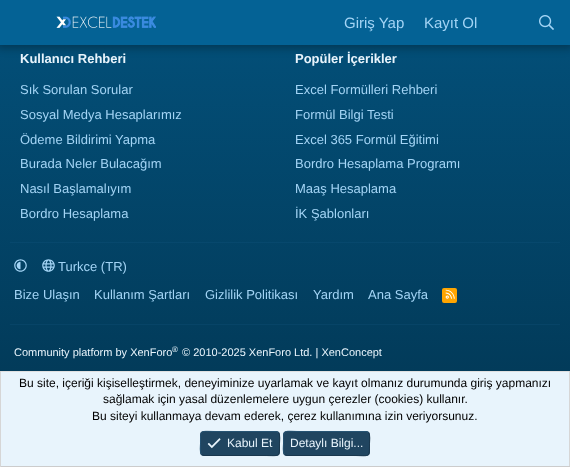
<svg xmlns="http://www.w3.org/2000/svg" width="570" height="467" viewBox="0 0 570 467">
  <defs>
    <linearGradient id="g1" gradientUnits="userSpaceOnUse" x1="285" y1="371" x2="285" y2="-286"><stop offset="0" stop-color="#023b5a"/><stop offset="1" stop-color="#046295"/></linearGradient>
  </defs>
  <rect width="100%" height="100%" fill="#fff"/>
  <path d="M0 45h570v326H0z" fill="url(#g1)"/>
  <path d="M-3 -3h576v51H-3z" fill="#0000004d" filter="blur(4px)"/>
  <path d="M0 0h570v45H0z" fill="#046295"/>
  <image x="56" y="16" width="100" height="12" href="img/1.png"/>
  <image x="539" y="15" width="15" height="15" href="img/2.png"/>
  <path d="M10 242h550v1H10z" fill="#07486d"/>
  <image x="14" y="259" width="13" height="13" href="img/3.png"/>
  <image x="42" y="259" width="13" height="13" href="img/4.png"/>
  <rect x="442" y="288" width="15" height="15" rx="2" fill="#ffa500"/>
  <image x="445" y="289" width="10" height="10" href="img/5.png"/>
  <path d="M10 324h550v1H10z" fill="#074467"/>
  <path d="M1 372h568v94H1z" fill="#e8f4fc"/>
  <path d="M0 371h570v1H0z" fill="#e0e0e0"/>
  <path d="M569 371h1v96H569z" fill="#d6d6d6"/>
  <path d="M0 466h570v1H0z" fill="#ccc"/>
  <path d="M0 371h1v96H0z" fill="#d6d6d6"/>
  <rect x="200" y="431" width="80" height="25" rx="4" fill="#204560"/>
  <path d="M278.5 432.5C280.5 435 279.5 441 279.5 443.5C279.5 458 280 455.5 264 455.5H204L201.5 454.5" fill="none" stroke="#1a374d"/>
  <path d="M201.5 454.5C199.5 452 200.5 446 200.5 443.5C200.5 429 200 431.5 216 431.5H276L278.5 432.5" fill="none" stroke="#265373"/>
  <image x="207" y="438" width="14" height="11" href="img/6.png"/>
  <rect x="283" y="431" width="87" height="25" rx="4" fill="#204560"/>
  <path d="M368.5 432.5C370.5 435 369.5 441 369.5 443.5C369.5 458.5 370 455.5 353 455.5H287L284.5 454.5" fill="none" stroke="#1a374d"/>
  <path d="M284.5 454.5C282.5 452 283.5 446 283.5 443.5C283.5 428.5 283 431.5 300 431.5H366L368.5 432.5" fill="none" stroke="#265373"/>
  <g font-family="Liberation Sans" font-size="15" fill="#a3d4f5">
    <text x="344" y="28">Giriş Yap</text>
    <text x="424" y="28">Kayıt Ol</text>
  </g>
  <text x="20" y="63" font-family="Liberation Sans" font-size="13" font-weight="bold" fill="#e8f4fc">Kullanıcı Rehberi</text>
  <g font-family="Liberation Sans" font-size="13" fill="#a3d4f5">
    <text x="20" y="94">Sık Sorulan Sorular</text>
    <text x="20" y="119">Sosyal Medya Hesaplarımız</text>
    <text x="20" y="144">Ödeme Bildirimi Yapma</text>
    <text x="20" y="168">Burada Neler Bulacağım</text>
    <text x="20" y="193">Nasıl Başlamalıyım</text>
    <text x="20" y="218">Bordro Hesaplama</text>
  </g>
  <text x="295" y="63" font-family="Liberation Sans" font-size="13" font-weight="bold" fill="#e8f4fc">Popüler İçerikler</text>
  <g font-family="Liberation Sans" font-size="13" fill="#a3d4f5">
    <text x="295" y="94">Excel Formülleri Rehberi</text>
    <text x="295" y="119">Formül Bilgi Testi</text>
    <text x="295" y="144">Excel 365 Formül Eğitimi</text>
    <text x="295" y="168">Bordro Hesaplama Programı</text>
    <text x="295" y="193">Maaş Hesaplama</text>
    <text x="295" y="218">İK Şablonları</text>
    <text x="58" y="271">Turkce (TR)</text>
    <text x="14" y="299">Bize Ulaşın</text>
    <text x="94" y="299">Kullanım Şartları</text>
    <text x="205" y="299">Gizlilik Politikası</text>
    <text x="313" y="299">Yardım</text>
    <text x="368" y="299">Ana Sayfa</text>
  </g>
  <text x="14" y="356" font-family="Liberation Sans" font-size="11" fill="#e8f4fc">Community platform by XenForo</text>
  <text x="172" y="352" font-family="Liberation Sans" font-size="8" fill="#e8f4fc">®</text>
  <text x="182" y="356" font-family="Liberation Sans" font-size="11" fill="#e8f4fc">© 2010-2025 XenForo Ltd. | XenConcept</text>
  <g font-family="Liberation Sans" font-size="12" fill="#000">
    <text x="19" y="387">Bu site, içeriği kişiselleştirmek, deneyiminize uyarlamak ve kayıt olmanız durumunda giriş yapmanızı</text>
    <text x="103" y="403">sağlamak için yasal düzenlemelere uygun çerezler (cookies) kullanır.</text>
    <text x="92" y="420">Bu siteyi kullanmaya devam ederek, çerez kullanımına izin veriyorsunuz.</text>
  </g>
  <g font-family="Liberation Sans" font-size="12" fill="#e8f4fc">
    <text x="227" y="447">Kabul Et</text>
    <text x="290" y="447">Detaylı Bilgi...</text>
  </g>
</svg>
